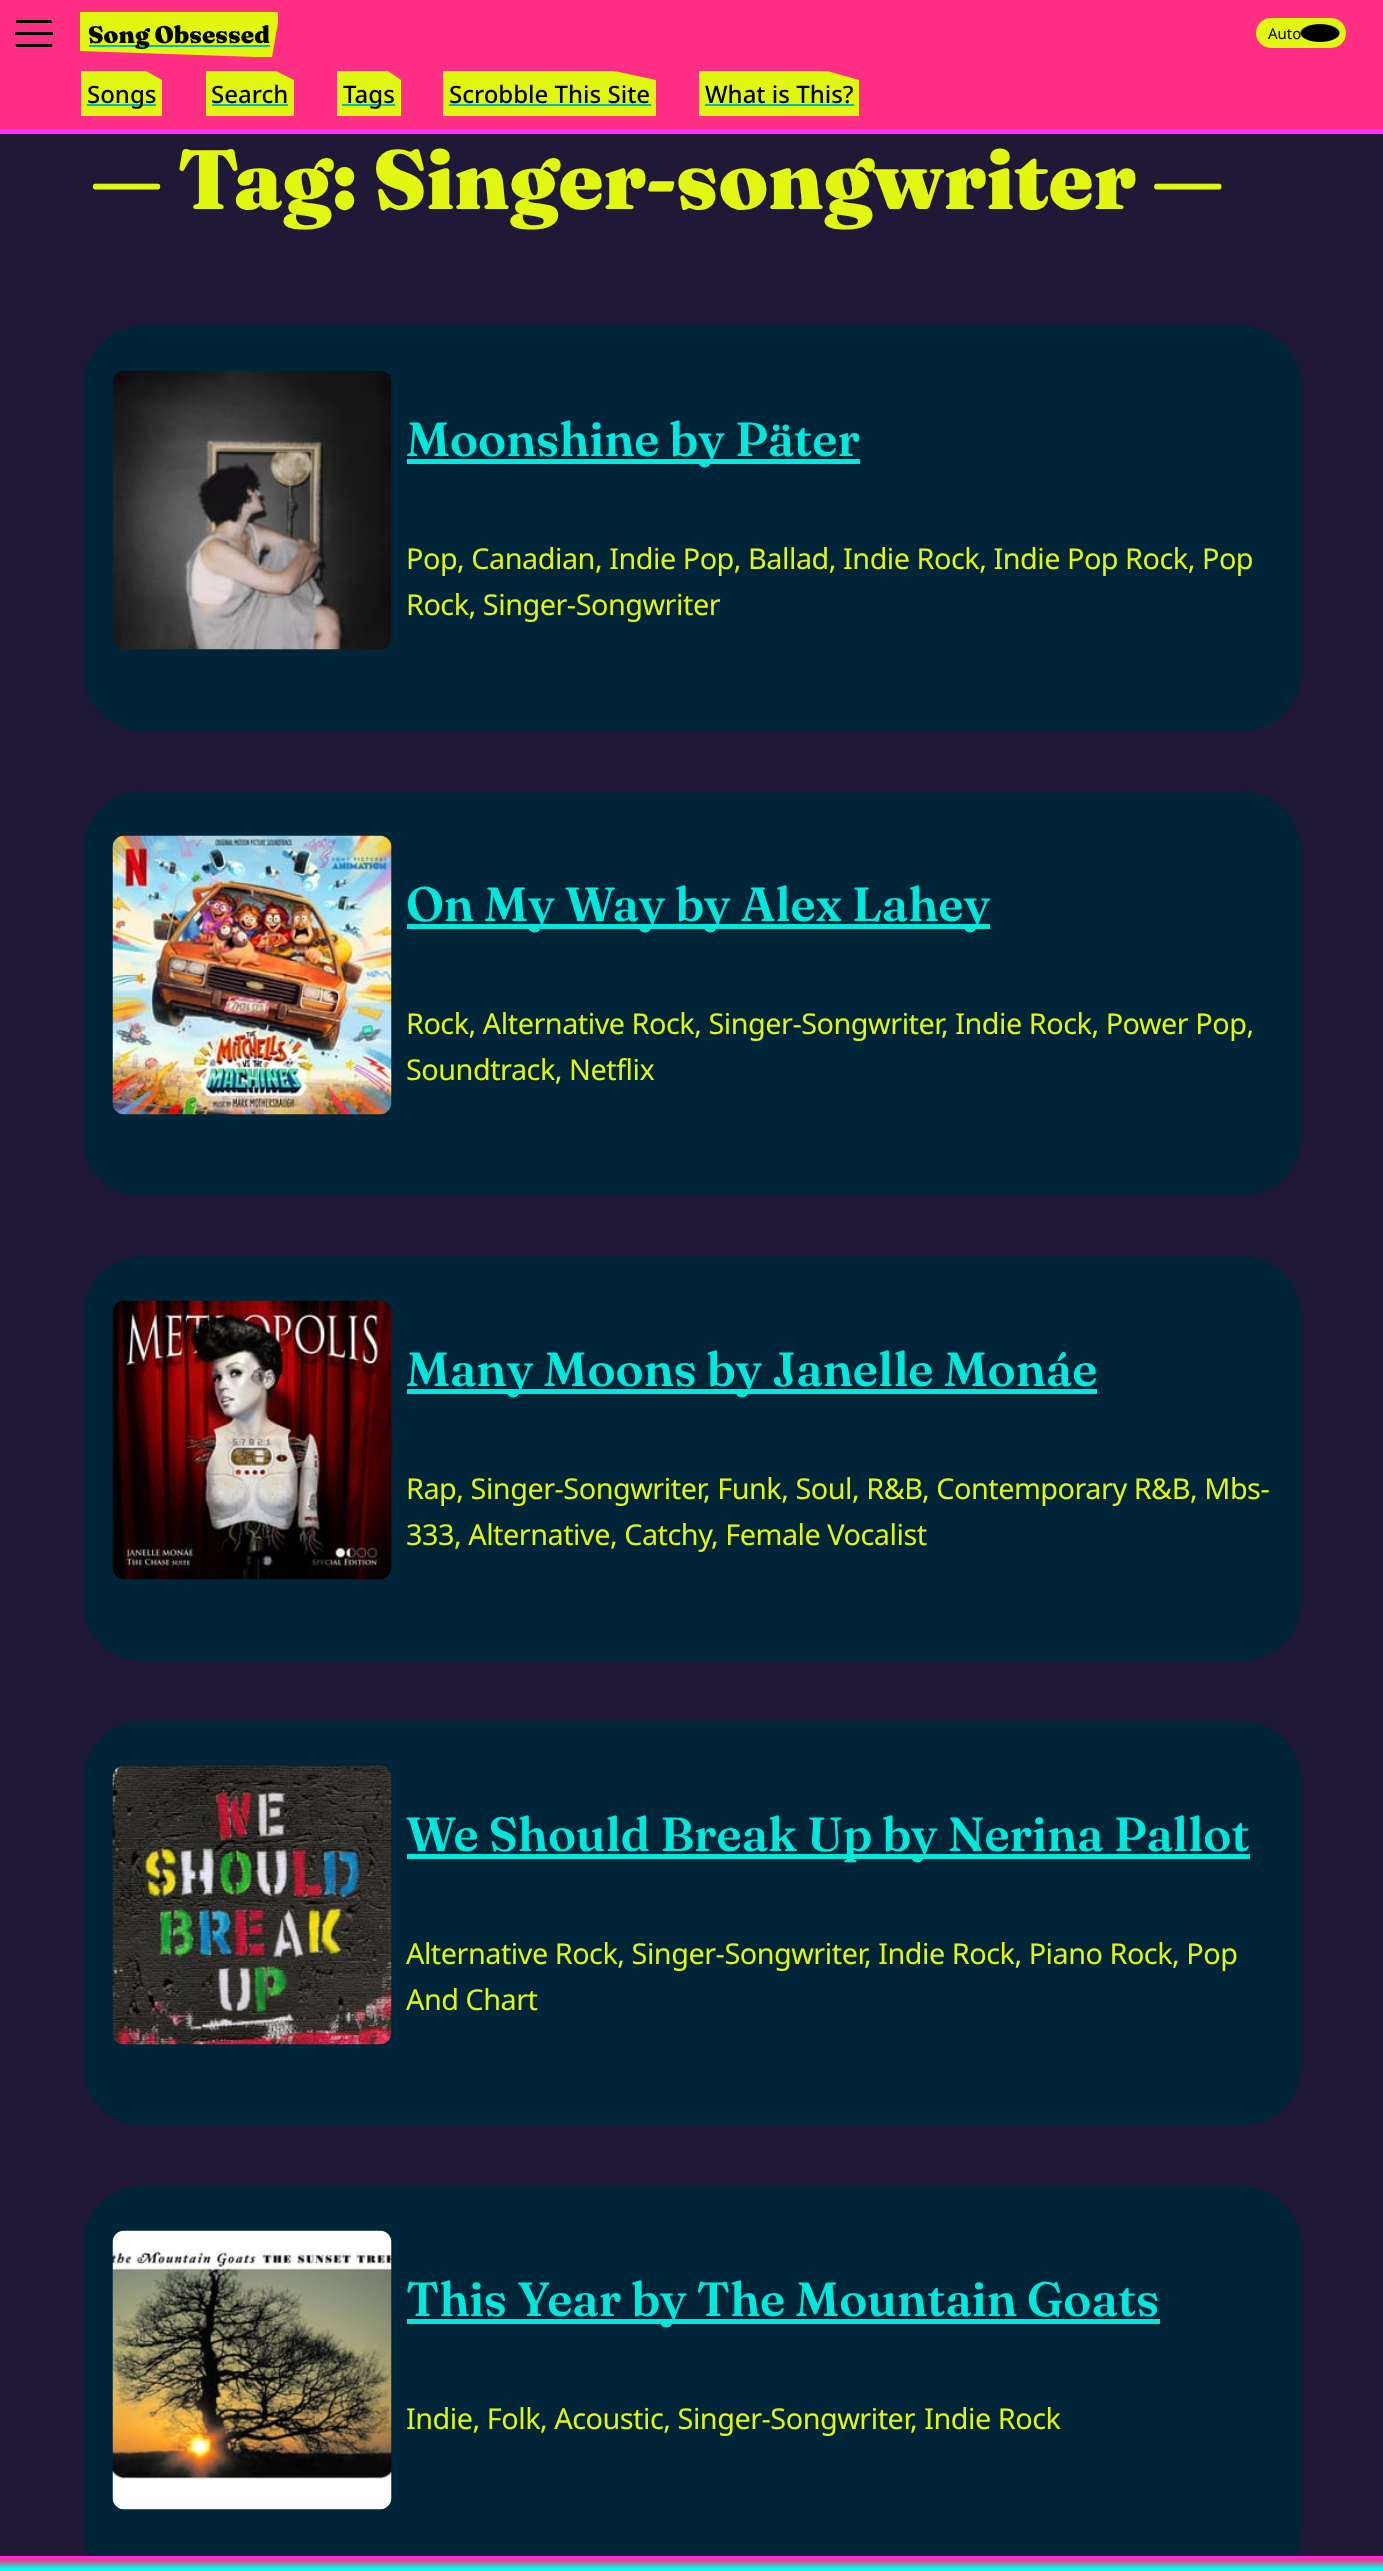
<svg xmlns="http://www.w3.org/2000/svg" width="1383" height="2571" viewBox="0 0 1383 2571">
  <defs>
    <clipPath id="clip1"><rect x="15" y="15" width="38" height="38" rx="12"/></clipPath>
    <linearGradient id="g1" gradientUnits="userSpaceOnUse" x1="692" y1="2556" x2="692" y2="2571"><stop offset="0" stop-color="#ff2eff"/><stop offset="0.25" stop-color="#ff2f86"/><stop offset="0.85" stop-color="#00fff2"/></linearGradient>
  </defs>
  <rect width="100%" height="100%" fill="#1f1836"/>
  <path d="M0 0h1383v129H0z" fill="#ff2f86"/>
  <path d="M0 129h1383v5H0z" fill="#ff2eff"/>
  <g clip-path="url(#clip1)">
    <path d="M15 20h38v3H15z" fill="#000"/>
  </g>
  <path d="M15 32h38v3H15z" fill="#000"/>
  <g clip-path="url(#clip1)">
    <path d="M15 44h38v3H15z" fill="#000"/>
  </g>
  <path d="M80 12H278V23L272 57H256L80 51Z" fill="#e2f70f"/>
  <path d="M89 45h181v2H89z" fill="#01bcb9"/>
  <rect x="1256" y="18" width="90" height="30" rx="15" fill="#e2f70f"/>
  <ellipse cx="1320" cy="33" rx="19.5" ry="9" fill="#010101"/>
  <path d="M81 71V116H162V80L146 71Z" fill="#e2f70f"/>
  <path d="M87 104h69v2H87z" fill="#01bcb9"/>
  <path d="M294 80V116H206V71H276Z" fill="#e2f70f"/>
  <path d="M212 104h76v2H212z" fill="#01bcb9"/>
  <path d="M337 71H388L401 80V116H337Z" fill="#e2f70f"/>
  <path d="M342 104h53v2H342z" fill="#01bcb9"/>
  <path d="M443 71H614L656 80V116H443Z" fill="#e2f70f"/>
  <path d="M449 104h202v2H449z" fill="#01bcb9"/>
  <path d="M859 116H699V71H827L859 80Z" fill="#e2f70f"/>
  <path d="M705 104h149v2H705z" fill="#01bcb9"/>
  <rect x="83" y="326" width="1218" height="405" rx="60" fill="#002438"/>
  <image x="112" y="370" width="280" height="280" href="img/1.png"/>
  <path d="M407 459h453v5H407z" fill="#00e8dc"/>
  <rect x="83" y="791" width="1218" height="405" rx="60" fill="#002438"/>
  <image x="112" y="835" width="280" height="280" href="img/2.png"/>
  <path d="M407 924h583v5H407z" fill="#00e8dc"/>
  <rect x="83" y="1256" width="1218" height="405" rx="60" fill="#002438"/>
  <image x="112" y="1300" width="280" height="280" href="img/3.png"/>
  <path d="M407 1389h690v5H407z" fill="#00e8dc"/>
  <rect x="83" y="1721" width="1218" height="405" rx="60" fill="#002438"/>
  <image x="112" y="1765" width="280" height="280" href="img/4.png"/>
  <path d="M407 1854h843v5H407z" fill="#00e8dc"/>
  <rect x="83" y="2186" width="1218" height="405" rx="60" fill="#002438"/>
  <image x="112" y="2230" width="280" height="280" href="img/5.png"/>
  <path d="M407 2319h753v5H407z" fill="#00e8dc"/>
  <path d="M0 2556h1383v15H0z" fill="url(#g1)"/>
  <text x="88" y="43" font-family="'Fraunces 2'" font-size="24" font-weight="900" fill="#010101">Song Obsessed</text>
  <text x="1268" y="39" font-family="Noto Sans" font-size="15" fill="#010101">Auto</text>
  <g font-family="Noto Sans" font-size="24" font-weight="500" fill="#010101">
    <text x="87" y="103">Songs</text>
    <text x="211" y="103">Search</text>
    <text x="343" y="103">Tags</text>
    <text x="449" y="103">Scrobble This Site</text>
    <text x="705" y="103">What is This?</text>
  </g>
  <text x="91" y="209" font-family="Fraunces" font-size="84" font-weight="900" fill="#e2f70f">— Tag: Singer-songwriter —</text>
  <text x="406" y="456" font-family="Fraunces" font-size="48" font-weight="600" fill="#00e8dc">Moonshine by Päter</text>
  <g font-family="Noto Sans" font-size="28.8" letter-spacing="-0.48" fill="#e2f70f">
    <text x="406" y="569">Pop, Canadian, Indie Pop, Ballad, Indie Rock, Indie Pop Rock, Pop</text>
    <text x="406" y="615">Rock, Singer-Songwriter</text>
  </g>
  <text x="406" y="921" font-family="Fraunces" font-size="48" font-weight="600" fill="#00e8dc">On My Way by Alex Lahey</text>
  <g font-family="Noto Sans" font-size="28.8" letter-spacing="-0.48" fill="#e2f70f">
    <text x="406" y="1034">Rock, Alternative Rock, Singer-Songwriter</text>
    <text x="941" y="1034">, Indie Rock, Power Pop,</text>
    <text x="406" y="1080">Soundtrack, Netflix</text>
  </g>
  <text x="406" y="1386" font-family="Fraunces" font-size="48" font-weight="600" fill="#00e8dc">Many Moons by Janelle Monáe</text>
  <g font-family="Noto Sans" font-size="28.8" letter-spacing="-0.48" fill="#e2f70f">
    <text x="406" y="1499">Rap, Singer-Songwriter</text>
    <text x="703" y="1499">, Funk, Soul, R&amp;B</text>
    <text x="922" y="1499">, Contemporary R&amp;B</text>
    <text x="1190" y="1499">, Mbs-</text>
    <text x="406" y="1545">333, Alternative, Catchy</text>
    <text x="711" y="1545">, Female Vocalist</text>
  </g>
  <text x="406" y="1851" font-family="Fraunces" font-size="48" font-weight="600" fill="#00e8dc">We Should Break Up by Nerina Pallot</text>
  <g font-family="Noto Sans" font-size="28.8" letter-spacing="-0.48" fill="#e2f70f">
    <text x="406" y="1964">Alternative Rock, Singer-Songwriter</text>
    <text x="864" y="1964">, Indie Rock, Piano Rock, Pop</text>
    <text x="406" y="2010">And Chart</text>
  </g>
  <text x="406" y="2316" font-family="Fraunces" font-size="48" font-weight="600" fill="#00e8dc">This Year by The Mountain Goats</text>
  <g font-family="Noto Sans" font-size="28.8" letter-spacing="-0.48" fill="#e2f70f">
    <text x="406" y="2429">Indie, Folk, Acoustic, Singer-Songwriter</text>
    <text x="910" y="2429">, Indie Rock</text>
  </g>
</svg>
